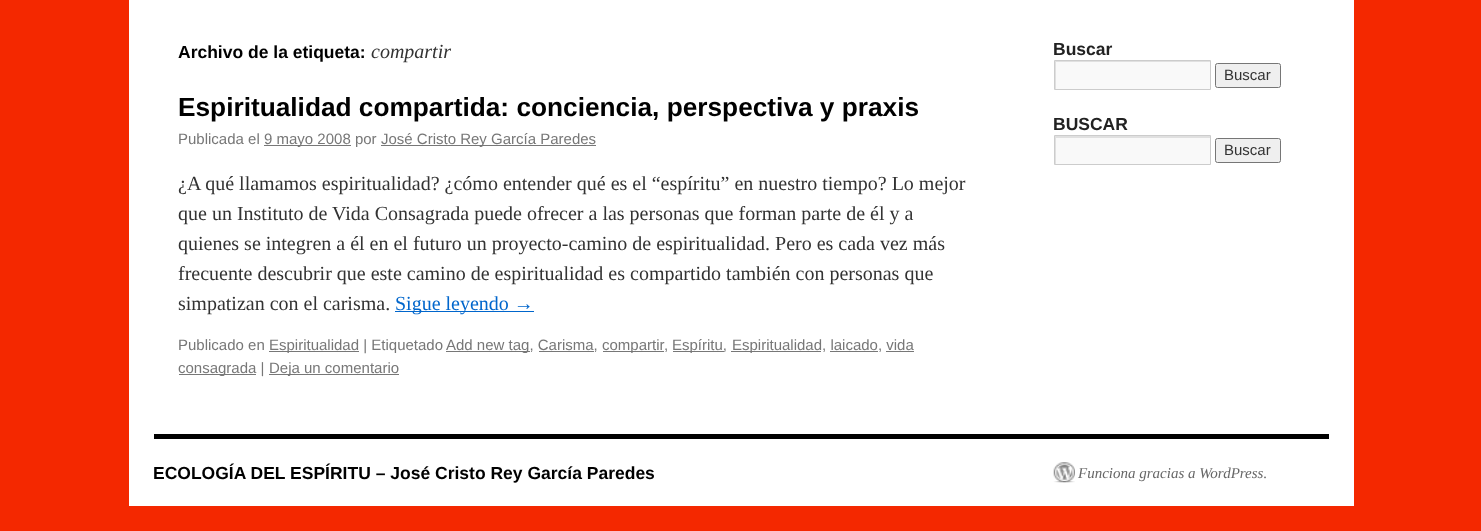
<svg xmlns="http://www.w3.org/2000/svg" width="1481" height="531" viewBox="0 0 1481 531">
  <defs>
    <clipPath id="clip1"><path d="M1055 61h155v28H1055z"/></clipPath>
    <clipPath id="clip2"><path d="M1055 136h155v28H1055z"/></clipPath>
  </defs>
  <rect width="100%" height="100%" fill="#f42800"/>
  <path d="M129 0h1225v506H129z" fill="#fff"/>
  <path d="M264 145h87v1H264z" fill="#777"/>
  <path d="M381 145h215v1H381z" fill="#777"/>
  <path d="M395 311h139v1H395z" fill="#06c"/>
  <path d="M269 351h90v1H269z" fill="#777"/>
  <path d="M446 351h84v1H446z" fill="#777"/>
  <path d="M539 351h55v1H539z" fill="#777"/>
  <path d="M603 351h61v1H603z" fill="#777"/>
  <path d="M673 351h51v1H673z" fill="#777"/>
  <path d="M731 351h90v1H731z" fill="#777"/>
  <path d="M830 351h48v1H830z" fill="#777"/>
  <path d="M886 351h28v1H886z" fill="#777"/>
  <path d="M179 374h77v1H179z" fill="#777"/>
  <path d="M269 374h130v1H269z" fill="#777"/>
  <path d="M1056 62h154v27H1056z" fill="#f9f9f9"/>
  <g clip-path="url(#clip1)">
    <path d="M931-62H1334V212H931ZM1056 62H1211V90H1056Z" fill="#e0e0e0" fill-rule="evenodd"/>
  </g>
  <path d="M1054.5 60.5h156v29H1054.5z" fill="none" stroke="#ccc"/>
  <rect x="1215.5" y="63.5" width="65" height="24" rx="2" fill="#efefef" stroke="#767676"/>
  <path d="M1056 138h154v26H1056z" fill="#f9f9f9"/>
  <g clip-path="url(#clip2)">
    <path d="M931 12H1334V288H931ZM1056 138H1211V165H1056Z" fill="#e0e0e0" fill-rule="evenodd"/>
  </g>
  <path d="M1054.5 135.5h156v29H1054.5z" fill="none" stroke="#ccc"/>
  <rect x="1215.5" y="138.5" width="65" height="24" rx="2" fill="#efefef" stroke="#767676"/>
  <path d="M154 434h1175v5H154z" fill="#000"/>
  <image x="1053" y="462" width="22" height="21" href="img/1.png"/>
  <text x="178" y="58" font-family="Liberation Sans" font-size="17.5" font-weight="bold" fill="#000">Archivo de la etiqueta:</text>
  <text x="371" y="58" font-family="Liberation Serif" font-size="20" font-style="italic" fill="#333">compartir</text>
  <text x="178" y="116" font-family="Liberation Sans" font-size="26.25" font-weight="bold" fill="#000">Espiritualidad compartida: conciencia, perspectiva y praxis</text>
  <g font-family="Liberation Sans" font-size="15" fill="#777">
    <text x="178" y="144">Publicada el</text>
    <text x="264" y="144">9 mayo 2008 por</text>
    <text x="381" y="144">José Cristo Rey García Paredes</text>
  </g>
  <g font-family="Liberation Serif" font-size="20" fill="#333">
    <text x="178" y="190">¿A qué llamamos espiritualidad? ¿cómo entender qué es el “espíritu” en nuestro tiempo? Lo mejor</text>
    <text x="178" y="220">que un Instituto de Vida Consagrada puede ofrecer a las personas que forman parte de él y a</text>
    <text x="178" y="250">quienes se integren a él en el futuro un proyecto-camino de espiritualidad. Pero es cada vez más</text>
    <text x="178" y="280">frecuente descubrir que este camino de espiritualidad es compartido también con personas que</text>
    <text x="178" y="310">simpatizan con el carisma.</text>
  </g>
  <text x="395" y="310" font-family="Liberation Serif" font-size="20" fill="#06c">Sigue leyendo →</text>
  <g font-family="Liberation Sans" font-size="15" fill="#777">
    <text x="178" y="350">Publicado en</text>
    <text x="269" y="350">Espiritualidad | Etiquetado</text>
    <text x="446" y="350">Add new tag, Carisma,</text>
    <text x="602" y="350">compartir</text>
    <text x="664" y="350">,</text>
    <text x="672" y="350">Espíritu,</text>
    <text x="732" y="350">Espiritualidad, laicado, vida</text>
    <text x="178" y="373">consagrada |</text>
    <text x="269" y="373">Deja un comentario</text>
  </g>
  <text x="1053" y="55" font-family="Liberation Sans" font-size="17.5" font-weight="bold" fill="#222">Buscar</text>
  <text x="1224" y="80" font-family="Liberation Sans" font-size="15" fill="#333">Buscar</text>
  <text x="1053" y="130" font-family="Liberation Sans" font-size="17.5" font-weight="bold" fill="#222">BUSCAR</text>
  <text x="1224" y="155" font-family="Liberation Sans" font-size="15" fill="#333">Buscar</text>
  <text x="153" y="479" font-family="Liberation Sans" font-size="17.5" font-weight="bold" fill="#000">ECOLOGÍA DEL ESPÍRITU – José Cristo Rey García Paredes</text>
  <text x="1078" y="478" font-family="Liberation Serif" font-size="15" font-style="italic" fill="#666">Funciona gracias a WordPress.</text>
</svg>
